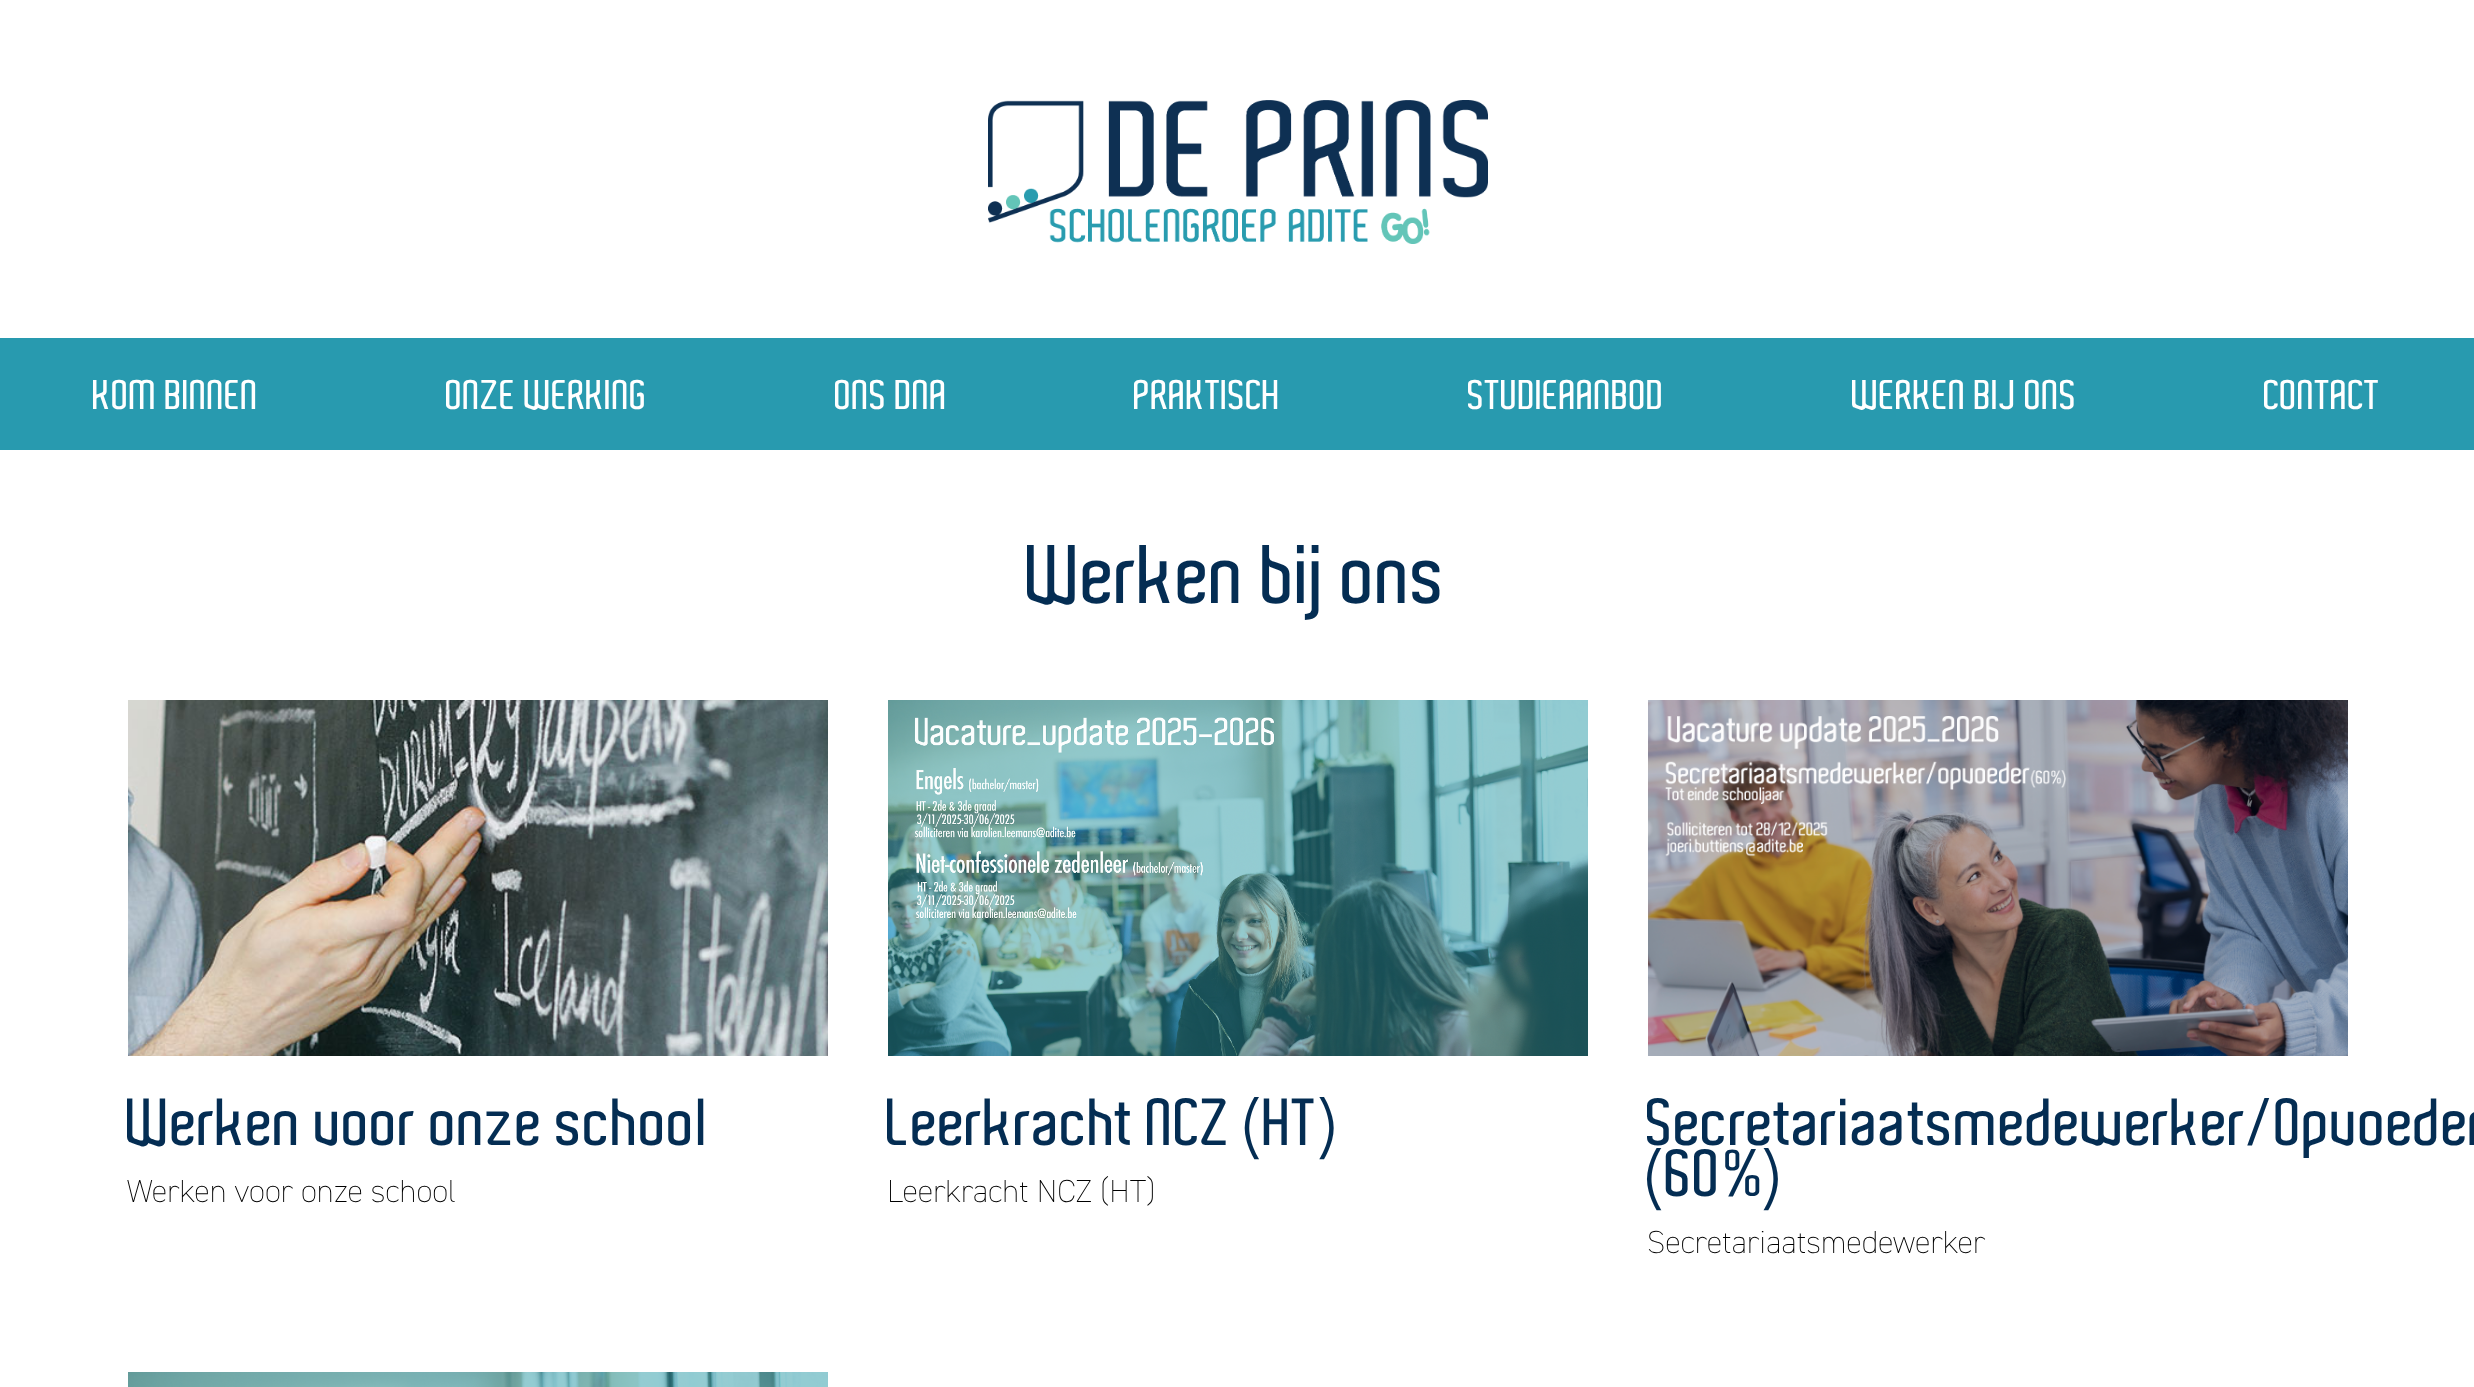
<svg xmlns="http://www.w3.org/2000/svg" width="2474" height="1387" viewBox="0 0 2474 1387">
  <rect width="100%" height="100%" fill="#fff"/>
  <image x="988" y="100" width="500" height="144" href="img/1.png"/>
  <path d="M0 338h2474v112H0z" fill="#289aaf"/>
  <image x="128" y="700" width="700" height="356" href="img/2.png"/>
  <image x="888" y="700" width="700" height="356" href="img/3.png"/>
  <image x="1648" y="700" width="700" height="356" href="img/4.png"/>
  <image x="128" y="1372" width="700" height="15" href="img/5.png"/>
  <g font-family="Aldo" font-size="40" font-weight="600" fill="#fff">
    <text x="93" y="409">KOM BINNEN</text>
    <text x="446" y="409">ONZE WERKING</text>
    <text x="835" y="409">ONS DNA</text>
    <text x="1134" y="409">PRAKTISCH</text>
    <text x="1468" y="409">STUDIEAANBOD</text>
    <text x="1852" y="409">WERKEN BIJ ONS</text>
    <text x="2264" y="409">CONTACT</text>
  </g>
  <text x="1027" y="603" font-family="Aldo" font-size="80" font-weight="600" fill="#042d53">Werken bij ons</text>
  <text x="127" y="1145" font-family="Aldo" font-size="64" font-weight="600" fill="#042d53">Werken voor onze school</text>
  <text x="127" y="1202" font-family="'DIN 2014'" font-size="32" font-weight="200" fill="#000">Werken voor onze school</text>
  <text x="887" y="1145" font-family="Aldo" font-size="64" font-weight="600" fill="#042d53">Leerkracht NCZ (HT)</text>
  <text x="887" y="1202" font-family="'DIN 2014'" font-size="32" font-weight="200" fill="#000">Leerkracht NCZ (HT)</text>
  <g font-family="Aldo" font-size="64" font-weight="600" fill="#042d53">
    <text x="1647" y="1145">Secretariaatsmedewerker/Opvoeder</text>
    <text x="1647" y="1196">(60%)</text>
  </g>
  <text x="1647" y="1253" font-family="'DIN 2014'" font-size="32" font-weight="200" fill="#000">Secretariaatsmedewerker</text>
</svg>
